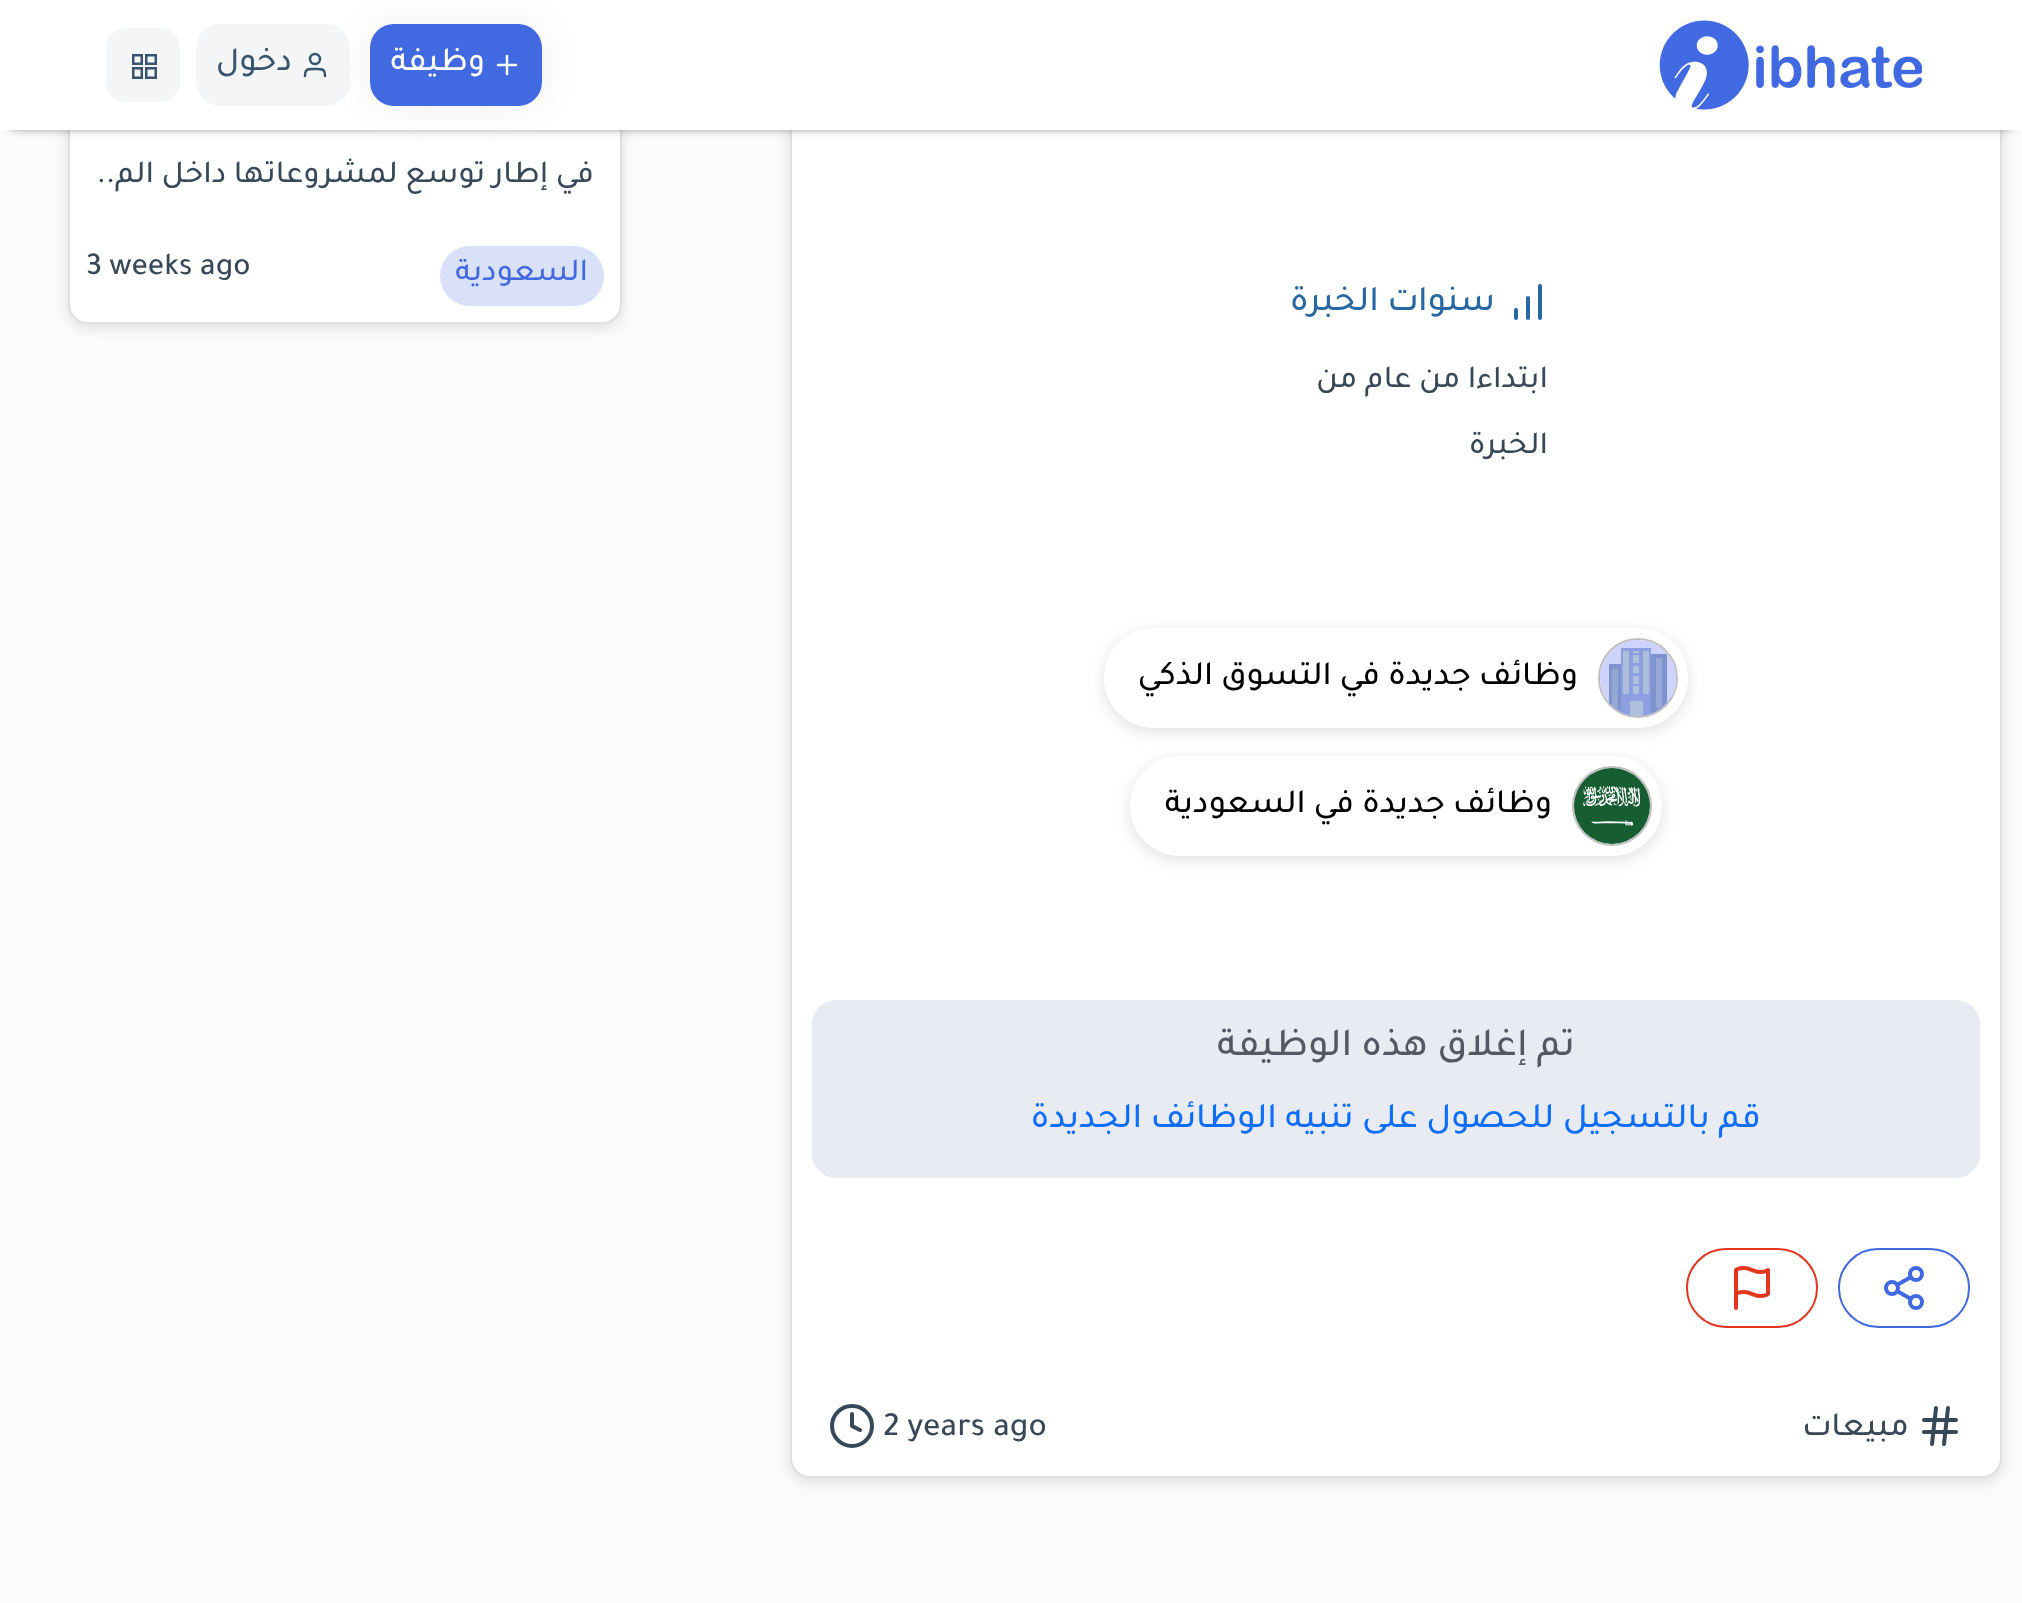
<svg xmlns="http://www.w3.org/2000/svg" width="2022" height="1603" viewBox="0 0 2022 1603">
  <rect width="100%" height="100%" fill="#fcfcfd"/>
  <rect x="68" y="-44" width="554" height="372" rx="20" fill="#63636333" filter="blur(8px)"/>
  <rect x="68" y="-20" width="554" height="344" rx="20" fill="#fff"/>
  <rect x="69" y="-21" width="552" height="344" rx="19" fill="none" stroke="#63636333" stroke-width="2"/>
  <rect x="790" y="-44" width="1212" height="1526" rx="20" fill="#63636333" filter="blur(8px)"/>
  <rect x="790" y="-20" width="1212" height="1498" rx="20" fill="#fff"/>
  <rect x="791" y="-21" width="1210" height="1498" rx="19" fill="none" stroke="#63636333" stroke-width="2"/>
  <path d="M12 20h1998v106H12z" fill="#2e2d2d" filter="blur(6px)"/>
  <path d="M0 0h2022v130H0z" fill="#fff"/>
  <image x="1659" y="20" width="263" height="90" href="img/1.png"/>
  <rect x="370" y="24" width="172" height="82" rx="24" fill="#eee" filter="blur(20px)"/>
  <rect x="370" y="24" width="172" height="82" rx="24" fill="#4169e1"/>
  <path d="M507 56V74M498 65H516" fill="none" stroke="#fff" stroke-width="2.5" stroke-linecap="round" stroke-linejoin="round"/>
  <rect x="196" y="24" width="154" height="82" rx="24" fill="#f3f5f6"/>
  <path d="M325 76C325 68.5 322 69 315 69C308 69 305 68.5 305 76" fill="none" stroke="#39546e" stroke-width="2.5" stroke-linecap="round" stroke-linejoin="round"/>
  <circle cx="315" cy="59" r="5" fill="none" stroke="#39546e" stroke-width="2.5"/>
  <rect x="106" y="28" width="74" height="74" rx="20" fill="#f4f5f6"/>
  <path d="M133.25 55.25h8.5v8.5H133.25z" fill="none" stroke="#39546e" stroke-width="2.5"/>
  <path d="M146.25 55.25h9.5v8.5H146.25z" fill="none" stroke="#39546e" stroke-width="2.5"/>
  <path d="M146.25 68.25h9.5v9.5H146.25z" fill="none" stroke="#39546e" stroke-width="2.5"/>
  <path d="M133.25 68.25h8.5v9.5H133.25z" fill="none" stroke="#39546e" stroke-width="2.5"/>
  <rect x="440" y="246" width="164" height="60" rx="30" fill="#d9e1f9"/>
  <path d="M1528 318V298M1540 318V286M1516 318V310" fill="none" stroke="#2767a3" stroke-width="4" stroke-linecap="round" stroke-linejoin="round"/>
  <rect x="1104" y="632" width="584" height="100" rx="50" fill="#63636333" filter="blur(8px)"/>
  <rect x="1104" y="628" width="584" height="100" rx="50" fill="#fff"/>
  <circle cx="1638" cy="678" r="39" fill="none" stroke="#c0c0c0" stroke-width="2"/>
  <image x="1600" y="640" width="76" height="76" href="img/2.png"/>
  <rect x="1130" y="760" width="532" height="100" rx="50" fill="#63636333" filter="blur(8px)"/>
  <rect x="1130" y="756" width="532" height="100" rx="50" fill="#fff"/>
  <circle cx="1612" cy="806" r="39" fill="none" stroke="#c0c0c0" stroke-width="2"/>
  <image x="1574" y="768" width="76" height="76" href="img/3.png"/>
  <rect x="812" y="1000" width="1168" height="178" rx="24" fill="#e9ebf2"/>
  <rect x="1839" y="1249" width="130" height="78" rx="39" fill="none" stroke="#4169e1" stroke-width="2"/>
  <circle cx="1916" cy="1274" r="6" fill="none" stroke="#4169e1" stroke-width="4"/>
  <circle cx="1892" cy="1288" r="6" fill="none" stroke="#4169e1" stroke-width="4"/>
  <circle cx="1916" cy="1302" r="6" fill="none" stroke="#4169e1" stroke-width="4"/>
  <path d="M1897 1291L1911 1299M1911 1277L1897 1285" fill="none" stroke="#4169e1" stroke-width="4" stroke-linecap="round" stroke-linejoin="round"/>
  <rect x="1687" y="1249" width="130" height="78" rx="39" fill="none" stroke="#e4361f" stroke-width="2"/>
  <image x="1734" y="1266" width="36" height="44" href="img/4.png"/>
  <path d="M1924 1420H1956M1924 1432H1956M1936 1408L1932 1444M1948 1408L1944 1444" fill="none" stroke="#374858" stroke-width="4" stroke-linecap="round" stroke-linejoin="round"/>
  <circle cx="852" cy="1426" r="20" fill="none" stroke="#374858" stroke-width="4"/>
  <path d="M852 1414V1426L860 1430" fill="none" stroke="#374858" stroke-width="4" stroke-linecap="round" stroke-linejoin="round"/>
  <text x="485" y="70" font-family="Tajawal" font-size="34" font-weight="500" direction="rtl" fill="#fff">وظيفة</text>
  <text x="292" y="70" font-family="Tajawal" font-size="34" font-weight="500" direction="rtl" fill="#39546e">دخول</text>
  <text x="594" y="182" font-family="Tajawal" font-size="32" font-weight="500" direction="rtl" fill="#374858">في إطار توسع لمشروعاتها داخل الم..</text>
  <text x="588" y="280" font-family="Tajawal" font-size="32" font-weight="500" direction="rtl" fill="#4169e1">السعودية</text>
  <text x="86" y="274" font-family="Tajawal" font-size="32" font-weight="500" fill="#374858">3 weeks ago</text>
  <text x="1495" y="310" font-family="Tajawal" font-size="36" font-weight="500" direction="rtl" fill="#2767a3">سنوات الخبرة</text>
  <g font-family="Tajawal" font-size="32" font-weight="500" direction="rtl" fill="#374858">
    <text x="1548" y="387">ابتداءا من عام من</text>
    <text x="1548" y="453">الخبرة</text>
  </g>
  <g font-family="Tajawal" font-size="34" font-weight="500" direction="rtl" fill="#000">
    <text x="1578" y="684">وظائف جديدة في التسوق الذكي</text>
    <text x="1552" y="812">وظائف جديدة في السعودية</text>
  </g>
  <text x="1575" y="1055" font-family="Tajawal" font-size="40" font-weight="500" direction="rtl" fill="#555863">تم إغلاق هذه الوظيفة</text>
  <text x="1761" y="1127" font-family="Tajawal" font-size="36" font-weight="500" direction="rtl" fill="#0d6efd">قم بالتسجيل للحصول على تنبيه الوظائف الجديدة</text>
  <text x="1909" y="1435" font-family="Tajawal" font-size="34" font-weight="500" direction="rtl" fill="#374858">مبيعات</text>
  <text x="883" y="1435" font-family="Tajawal" font-size="34" font-weight="500" fill="#374858">2 years ago</text>
</svg>
